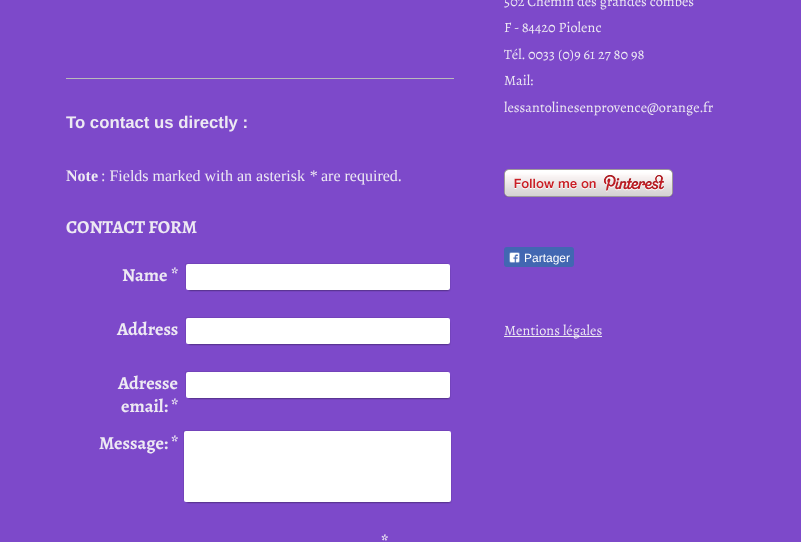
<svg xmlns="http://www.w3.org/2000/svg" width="801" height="542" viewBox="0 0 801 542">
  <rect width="100%" height="100%" fill="#7d49ca"/>
  <path d="M66 78h388v1H66z" fill="#bababa"/>
  <path d="M187 263C186 263 185 264 185 265V287C185 288 185 289 186 289V273C186 272 184 264 188 264H449L447 263Z" fill="#7343ba"/>
  <path d="M189 268h260v22H189z" fill="#000000cc" filter="blur(1px)"/>
  <rect x="186" y="264" width="264" height="26" rx="2" fill="#fff"/>
  <path d="M187 317C186 317 185 318 185 319V341C185 342 185 343 186 343V327C186 326 184 318 188 318H449L447 317Z" fill="#7343ba"/>
  <path d="M189 322h260v22H189z" fill="#000000cc" filter="blur(1px)"/>
  <rect x="186" y="318" width="264" height="26" rx="2" fill="#fff"/>
  <path d="M187 371C186 371 185 372 185 373V395C185 396 185 397 186 397V381C186 380 184 372 188 372H449L447 371Z" fill="#7343ba"/>
  <path d="M189 376h260v22H189z" fill="#000000cc" filter="blur(1px)"/>
  <rect x="186" y="372" width="264" height="26" rx="2" fill="#fff"/>
  <path d="M185 430L183 431V499L184 501V444C184 440 182 431 186 431H450L448 430Z" fill="#7343ba"/>
  <path d="M187 435h263v67H187z" fill="#000000cc" filter="blur(1px)"/>
  <rect x="184" y="431" width="267" height="71" rx="2" fill="#fff"/>
  <image x="504" y="169" width="169" height="28" href="img/1.png"/>
  <rect x="504" y="247" width="70" height="20" rx="3" fill="#4267b2"/>
  <image x="509" y="252" width="11" height="11" href="img/2.png"/>
  <path d="M504 336h98v1H504z" fill="#ede9f3"/>
  <text x="66" y="128" font-family="Liberation Sans" font-size="16.75" font-weight="bold" fill="#ede9f3">To contact us directly :</text>
  <text x="66" y="181" font-family="Liberation Serif" font-size="16" font-weight="bold" fill="#ede9f3">Note</text>
  <text x="101" y="181" font-family="Liberation Serif" font-size="16" fill="#ede9f3">: Fields marked with an asterisk</text>
  <text x="309" y="181" font-family="Liberation Serif" font-size="16" font-style="italic" fill="#ede9f3">*</text>
  <text x="321" y="181" font-family="Liberation Serif" font-size="16" fill="#ede9f3">are required.</text>
  <g font-family="Alegreya" font-size="18.25" font-weight="bold" fill="#ede9f3">
    <text x="66" y="233">CONTACT FORM</text>
    <text x="122" y="281">Name</text>
    <text x="171" y="281">*</text>
    <text x="117" y="335">Address</text>
    <text x="118" y="389">Adresse</text>
    <text x="121" y="412">email:</text>
    <text x="171" y="412">*</text>
    <text x="99" y="449">Message:</text>
    <text x="171" y="449">*</text>
    <text x="381" y="548">*</text>
  </g>
  <g font-family="Alegreya" font-size="14.25" fill="#ede9f3">
    <text x="504" y="6">502 Chemin des grandes combes</text>
    <text x="504" y="32">F - 84420 Piolenc</text>
    <text x="504" y="59">Tél. 0033 (0)9 61 27 80 98</text>
    <text x="504" y="85">Mail:</text>
    <text x="504" y="112">lessantolinesenprovence@orange.fr</text>
  </g>
  <text x="524" y="262" font-family="Liberation Sans" font-size="12" fill="#fff">Partager</text>
  <text x="504" y="335" font-family="Alegreya" font-size="14.25" fill="#ede9f3">Mentions légales</text>
</svg>
